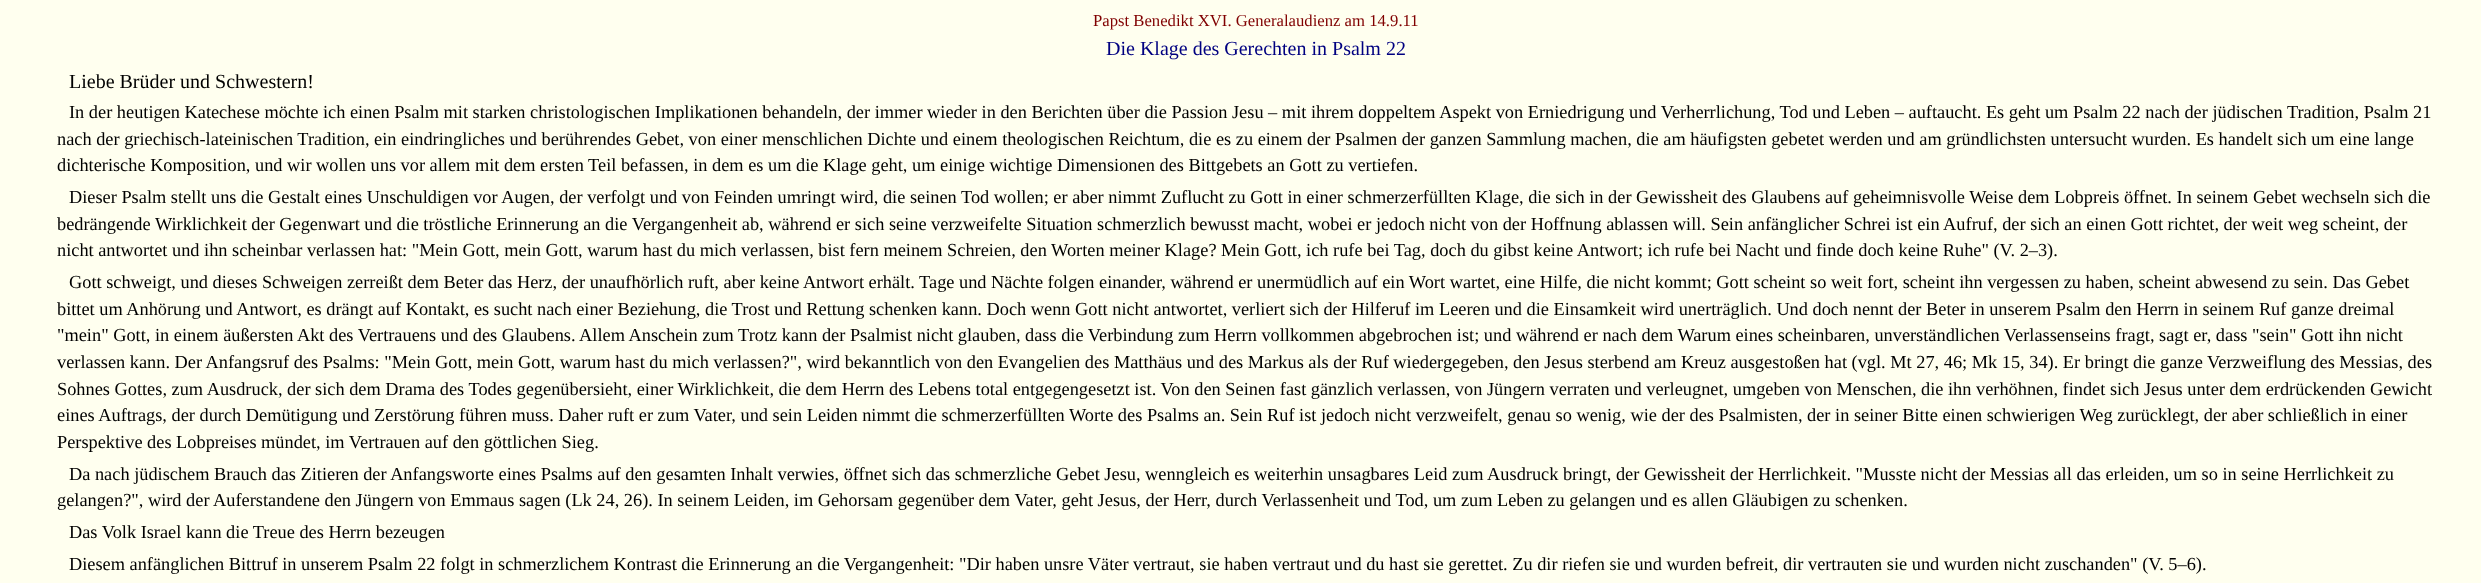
<svg xmlns="http://www.w3.org/2000/svg" width="2481" height="583" viewBox="0 0 2481 583">
  <rect width="100%" height="100%" fill="#ffffef"/>
  <text x="1093" y="26" font-family="Liberation Serif" font-size="16.7" fill="#800000">Papst Benedikt XVI. Generalaudienz am 14.9.11</text>
  <text x="1106" y="55" font-family="Liberation Serif" font-size="20" fill="#000080">Die Klage des Gerechten in Psalm 22</text>
  <text x="69" y="88" font-family="Liberation Serif" font-size="20" fill="#000">Liebe Brüder und Schwestern!</text>
  <g font-family="Liberation Serif" font-size="18.33" fill="#000">
    <text x="69" y="118">In der heutigen Katechese möchte ich einen Psalm mit starken christologischen Implikationen behandeln, der immer wieder in den Berichten über die Passion Jesu – mit ihrem doppeltem Aspekt von Erniedrigung und Verherrlichung, Tod und Leben – auftaucht. Es geht um Psalm 22 nach der jüdischen Tradition, Psalm 21</text>
    <text x="57" y="145">nach der griechisch-lateinischen Tradition, ein eindringliches und berührendes Gebet, von einer menschlichen Dichte und einem theologischen Reichtum, die es zu einem der Psalmen der ganzen Sammlung machen, die am häufigsten gebetet werden und am gründlichsten untersucht wurden. Es handelt sich um eine lange</text>
    <text x="57" y="171">dichterische Komposition, und wir wollen uns vor allem mit dem ersten Teil befassen, in dem es um die Klage geht, um einige wichtige Dimensionen des Bittgebets an Gott zu vertiefen.</text>
    <text x="69" y="203">Dieser Psalm stellt uns die Gestalt eines Unschuldigen vor Augen, der verfolgt und von Feinden umringt wird, die seinen Tod wollen; er aber nimmt Zuflucht zu Gott in einer schmerzerfüllten Klage, die sich in der Gewissheit des Glaubens auf geheimnisvolle Weise dem Lobpreis öffnet. In seinem Gebet wechseln sich die</text>
    <text x="57" y="230">bedrängende Wirklichkeit der Gegenwart und die tröstliche Erinnerung an die Vergangenheit ab, während er sich seine verzweifelte Situation schmerzlich bewusst macht, wobei er jedoch nicht von der Hoffnung ablassen will. Sein anfänglicher Schrei ist ein Aufruf, der sich an einen Gott richtet, der weit weg scheint, der</text>
    <text x="57" y="256">nicht antwortet und ihn scheinbar verlassen hat: "Mein Gott, mein Gott, warum hast du mich verlassen, bist fern meinem Schreien, den Worten meiner Klage? Mein Gott, ich rufe bei Tag, doch du gibst keine Antwort; ich rufe bei Nacht und finde doch keine Ruhe" (V. 2–3).</text>
    <text x="69" y="288">Gott schweigt, und dieses Schweigen zerreißt dem Beter das Herz, der unaufhörlich ruft, aber keine Antwort erhält. Tage und Nächte folgen einander, während er unermüdlich auf ein Wort wartet, eine Hilfe, die nicht kommt; Gott scheint so weit fort, scheint ihn vergessen zu haben, scheint abwesend zu sein. Das Gebet</text>
    <text x="57" y="315">bittet um Anhörung und Antwort, es drängt auf Kontakt, es sucht nach einer Beziehung, die Trost und Rettung schenken kann. Doch wenn Gott nicht antwortet, verliert sich der Hilferuf im Leeren und die Einsamkeit wird unerträglich. Und doch nennt der Beter in unserem Psalm den Herrn in seinem Ruf ganze dreimal</text>
    <text x="57" y="341">"mein" Gott, in einem äußersten Akt des Vertrauens und des Glaubens. Allem Anschein zum Trotz kann der Psalmist nicht glauben, dass die Verbindung zum Herrn vollkommen abgebrochen ist; und während er nach dem Warum eines scheinbaren, unverständlichen Verlassenseins fragt, sagt er, dass "sein" Gott ihn nicht</text>
    <text x="57" y="368">verlassen kann. Der Anfangsruf des Psalms: "Mein Gott, mein Gott, warum hast du mich verlassen?", wird bekanntlich von den Evangelien des Matthäus und des Markus als der Ruf wiedergegeben, den Jesus sterbend am Kreuz ausgestoßen hat (vgl. Mt 27, 46; Mk 15, 34). Er bringt die ganze Verzweiflung des Messias, des</text>
    <text x="57" y="395">Sohnes Gottes, zum Ausdruck, der sich dem Drama des Todes gegenübersieht, einer Wirklichkeit, die dem Herrn des Lebens total entgegengesetzt ist. Von den Seinen fast gänzlich verlassen, von Jüngern verraten und verleugnet, umgeben von Menschen, die ihn verhöhnen, findet sich Jesus unter dem erdrückenden Gewicht</text>
    <text x="57" y="421">eines Auftrags, der durch Demütigung und Zerstörung führen muss. Daher ruft er zum Vater, und sein Leiden nimmt die schmerzerfüllten Worte des Psalms an. Sein Ruf ist jedoch nicht verzweifelt, genau so wenig, wie der des Psalmisten, der in seiner Bitte einen schwierigen Weg zurücklegt, der aber schließlich in einer</text>
    <text x="57" y="448">Perspektive des Lobpreises mündet, im Vertrauen auf den göttlichen Sieg.</text>
    <text x="69" y="480">Da nach jüdischem Brauch das Zitieren der Anfangsworte eines Psalms auf den gesamten Inhalt verwies, öffnet sich das schmerzliche Gebet Jesu, wenngleich es weiterhin unsagbares Leid zum Ausdruck bringt, der Gewissheit der Herrlichkeit. "Musste nicht der Messias all das erleiden, um so in seine Herrlichkeit zu</text>
    <text x="57" y="506">gelangen?", wird der Auferstandene den Jüngern von Emmaus sagen (Lk 24, 26). In seinem Leiden, im Gehorsam gegenüber dem Vater, geht Jesus, der Herr, durch Verlassenheit und Tod, um zum Leben zu gelangen und es allen Gläubigen zu schenken.</text>
    <text x="69" y="538">Das Volk Israel kann die Treue des Herrn bezeugen</text>
    <text x="69" y="570">Diesem anfänglichen Bittruf in unserem Psalm 22 folgt in schmerzlichem Kontrast die Erinnerung an die Vergangenheit: "Dir haben unsre Väter vertraut, sie haben vertraut und du hast sie gerettet. Zu dir riefen sie und wurden befreit, dir vertrauten sie und wurden nicht zuschanden" (V. 5–6).</text>
  </g>
</svg>
